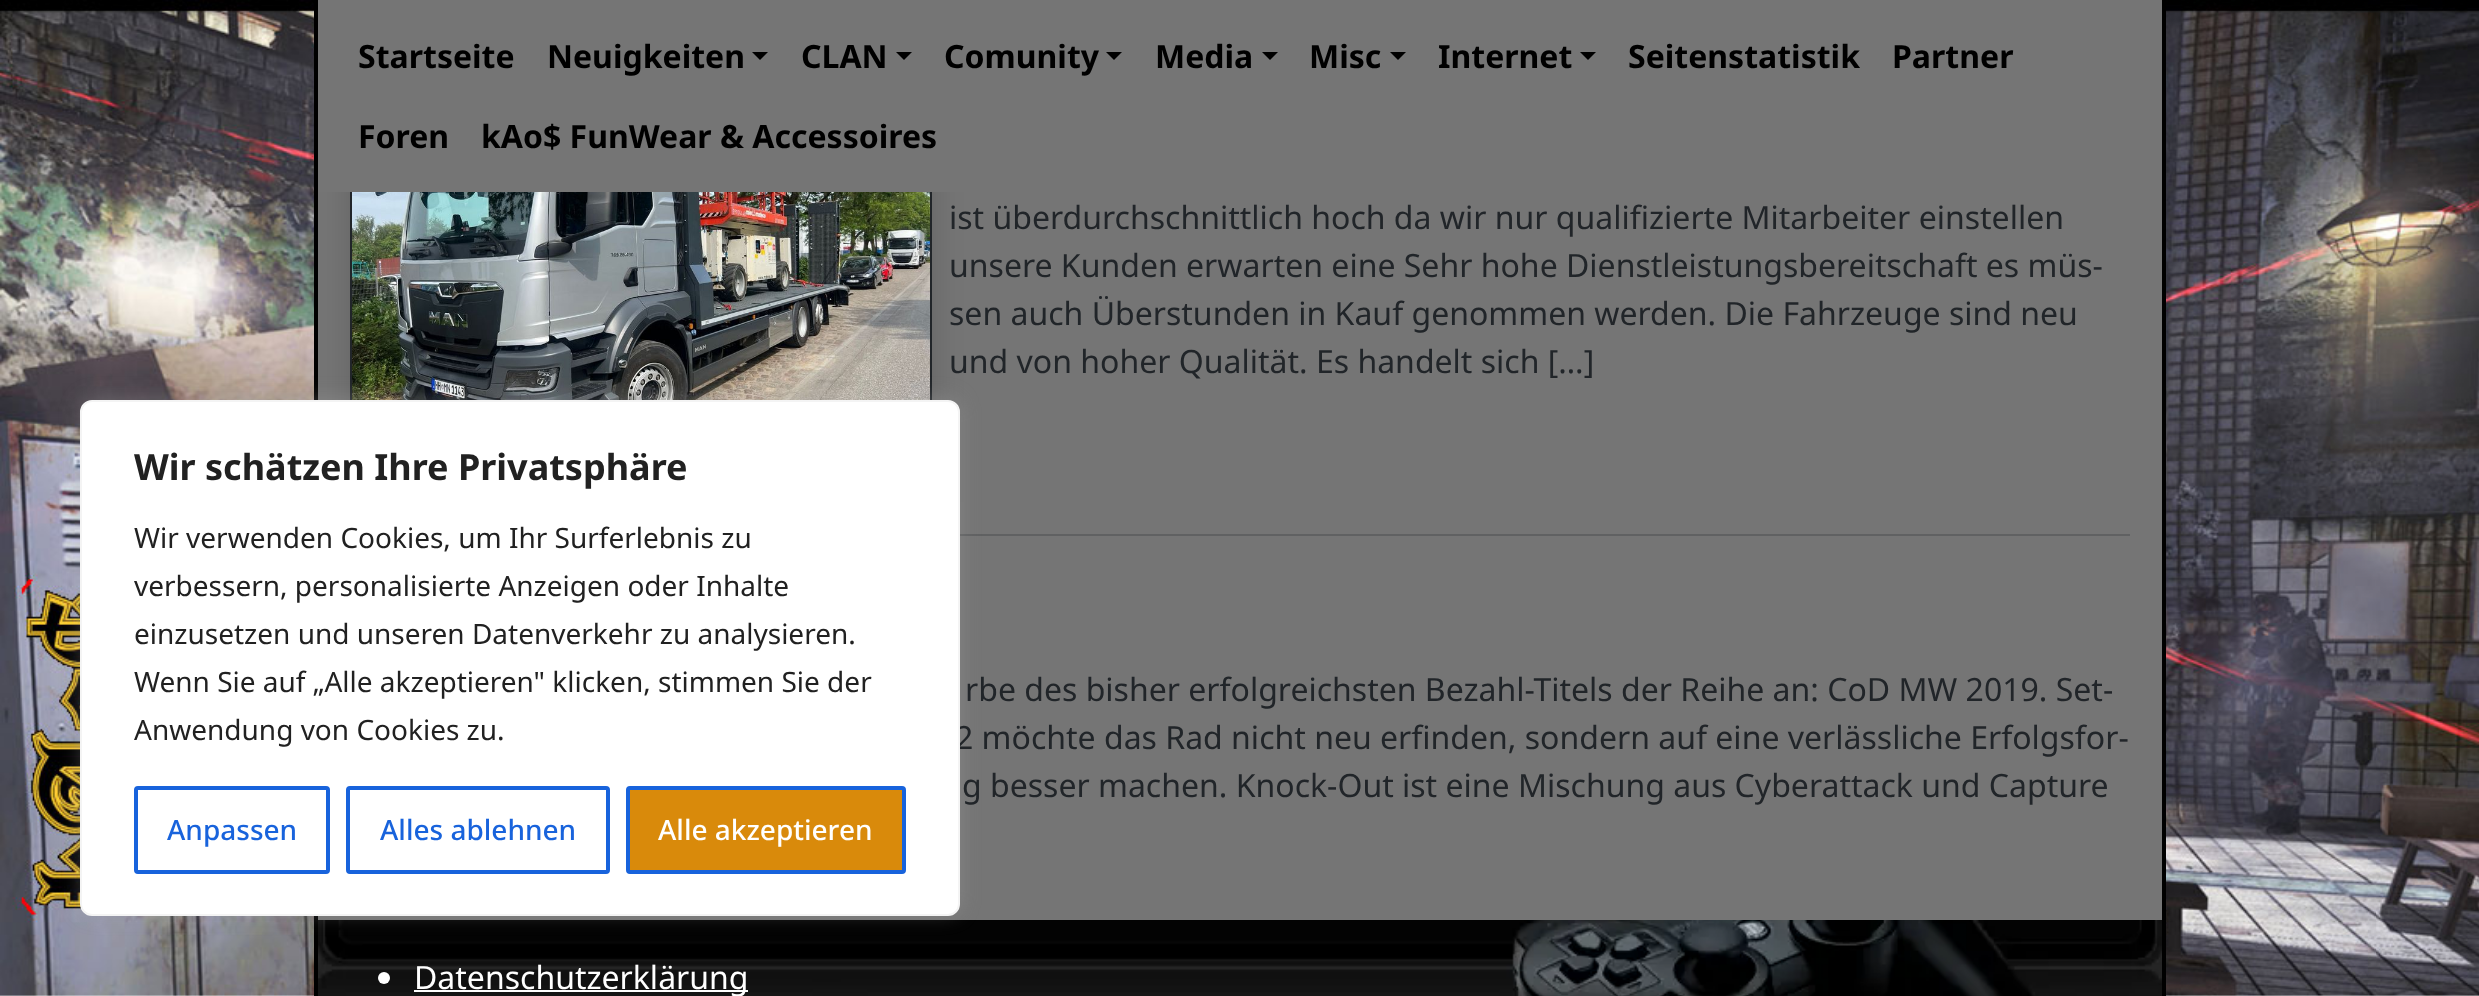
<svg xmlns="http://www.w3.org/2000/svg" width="2479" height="996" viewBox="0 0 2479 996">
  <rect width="100%" height="100%" fill="#fff"/>
  <image x="0" y="0" width="2479" height="996" href="img/1.png"/>
  <path d="M318 192h1844v728H318z" fill="#757575"/>
  <path d="M316 -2h1848v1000H316z" fill="none" stroke="#000" stroke-width="4"/>
  <path d="M350 64h582v438H350z" fill="#00000026" filter="blur(16px)"/>
  <path d="M351 49h580v436H351z" fill="none" stroke="#212529" stroke-width="2"/>
  <path d="M318 0h1844v192H318z" fill="#757575"/>
  <path d="M752 52H768L760 60Z" fill="#000"/>
  <path d="M896 52H912L904 60Z" fill="#000"/>
  <path d="M1106 52H1122L1114 60Z" fill="#000"/>
  <path d="M1262 52H1278L1270 60Z" fill="#000"/>
  <path d="M1390 52H1406L1398 60Z" fill="#000"/>
  <path d="M1580 52H1596L1588 60Z" fill="#000"/>
  <image x="352" y="192" width="578" height="208" href="img/2.png"/>
  <path d="M960 534h1170v2H960z" fill="#606162"/>
  <image x="318" y="920" width="1844" height="76" href="img/3.png"/>
  <circle cx="384" cy="978" r="6" fill="#fff"/>
  <path d="M414 990h334v2H414z" fill="#fff"/>
  <rect x="80" y="398" width="880" height="516" rx="12" fill="#acabab4d" filter="blur(10px)"/>
  <g font-family="Noto Sans" font-size="32" font-weight="bold" fill="#000">
    <text x="358" y="68">Startseite</text>
    <text x="547" y="68">Neuigkeiten</text>
    <text x="801" y="68">CLAN</text>
    <text x="944" y="68">Comunity</text>
    <text x="1155" y="68">Media</text>
    <text x="1309" y="68">Misc</text>
    <text x="1438" y="68">Internet</text>
    <text x="1628" y="68">Seitenstatistik</text>
    <text x="1892" y="68">Partner</text>
    <text x="358" y="148">Foren</text>
    <text x="481" y="148">kAo$ FunWear &amp; Accessoires</text>
  </g>
  <g font-family="Noto Sans" font-size="32" fill="#212529">
    <text x="949" y="229">ist überdurchschnittlich hoch da wir nur qualifizierte Mitarbeiter einstellen</text>
    <text x="949" y="277">unsere Kunden erwarten eine Sehr hohe Dienstleistungsbereitschaft es müs-</text>
    <text x="949" y="325">sen auch Überstunden in Kauf genommen werden. Die Fahrzeuge sind neu</text>
    <text x="949" y="373">und von hoher Qualität. Es handelt sich […]</text>
    <text x="965" y="701">rbe des bisher erfolgreichsten Bezahl-Titels der Reihe an: CoD MW 2019. Set-</text>
    <text x="955" y="749">2 möchte das Rad nicht neu erfinden, sondern auf eine verlässliche Erfolgsfor-</text>
    <text x="962" y="797">g besser machen. Knock-Out ist eine Mischung aus Cyberattack und Capture</text>
  </g>
  <text x="414" y="989" font-family="Noto Sans" font-size="32" fill="#fff">Datenschutzerklärung</text>
  <rect x="81" y="401" width="878" height="514" rx="11" fill="#fff" stroke="#f4f4f4" stroke-width="2"/>
  <text x="134" y="480" font-family="Noto Sans" font-size="36" font-weight="bold" fill="#212121">Wir schätzen Ihre Privatsphäre</text>
  <g font-family="Noto Sans" font-size="28" fill="#212121">
    <text x="134" y="548">Wir verwenden Cookies, um Ihr Surferlebnis zu</text>
    <text x="134" y="596">verbessern, personalisierte Anzeigen oder Inhalte</text>
    <text x="134" y="644">einzusetzen und unseren Datenverkehr zu analysieren.</text>
    <text x="134" y="692">Wenn Sie auf „Alle akzeptieren" klicken, stimmen Sie der</text>
    <text x="134" y="740">Anwendung von Cookies zu.</text>
  </g>
  <rect x="136" y="788" width="192" height="84" rx="2" fill="none" stroke="#1863dc" stroke-width="4"/>
  <text x="167" y="840" font-family="Noto Sans" font-size="28" font-weight="500" fill="#1863dc">Anpassen</text>
  <rect x="348" y="788" width="260" height="84" rx="2" fill="none" stroke="#1863dc" stroke-width="4"/>
  <text x="380" y="840" font-family="Noto Sans" font-size="28" font-weight="500" fill="#1863dc">Alles ablehnen</text>
  <rect x="628" y="788" width="276" height="84" rx="2" fill="#d98a0b" stroke="#1863dc" stroke-width="4"/>
  <text x="658" y="840" font-family="Noto Sans" font-size="28" font-weight="500" fill="#fff">Alle akzeptieren</text>
</svg>
